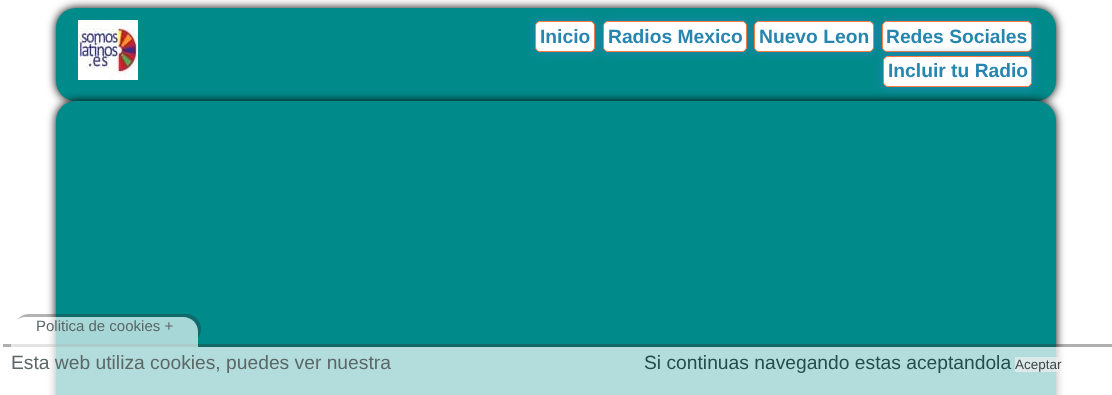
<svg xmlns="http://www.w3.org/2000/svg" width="1112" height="395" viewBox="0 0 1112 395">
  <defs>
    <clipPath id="clip1"><path d="M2 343h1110v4H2z"/></clipPath>
    <clipPath id="clip2"><path d="M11 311H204V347H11ZM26 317H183C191.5 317 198 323.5 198 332V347H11V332C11 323.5 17.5 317 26 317Z" clip-rule="evenodd"/></clipPath>
  </defs>
  <rect width="100%" height="100%" fill="#fff"/>
  <rect x="56" y="8" width="1000" height="93" rx="20" fill="#000" filter="blur(5px)"/>
  <rect x="56" y="8" width="1000" height="93" rx="20" fill="#008b8b"/>
  <image x="78" y="20" width="60" height="60" href="img/1.png"/>
  <rect x="535" y="21" width="61" height="32" rx="5" fill="#2686af" filter="blur(5px)"/>
  <rect x="535.5" y="21.5" width="59" height="30" rx="4.5" fill="#fff" stroke="#fc7c3d"/>
  <rect x="603" y="21" width="145" height="32" rx="5" fill="#2686af" filter="blur(5px)"/>
  <rect x="603.5" y="21.5" width="143" height="30" rx="4.5" fill="#fff" stroke="#fc7c3d"/>
  <rect x="754" y="21" width="121" height="32" rx="5" fill="#2686af" filter="blur(5px)"/>
  <rect x="754.5" y="21.5" width="119" height="30" rx="4.5" fill="#fff" stroke="#fc7c3d"/>
  <rect x="882" y="21" width="151" height="32" rx="5" fill="#2686af" filter="blur(5px)"/>
  <rect x="882.5" y="21.5" width="149" height="30" rx="4.5" fill="#fff" stroke="#fc7c3d"/>
  <rect x="56" y="101" width="1000" height="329" rx="20" fill="#000" filter="blur(5px)"/>
  <rect x="56" y="101" width="1000" height="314" rx="20" fill="#008b8b"/>
  <rect x="883" y="56" width="150" height="32" rx="5" fill="#2686af" filter="blur(5px)"/>
  <rect x="883.5" y="56.5" width="148" height="30" rx="4.5" fill="#fff" stroke="#fc7c3d"/>
  <g clip-path="url(#clip1)">
    <path d="M3 344h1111v48H3z" fill="#32323263" filter="blur(0.5px)"/>
  </g>
  <path d="M45 347h1022v48H45z" fill="#ffffffb3"/>
  <g clip-path="url(#clip2)">
    <rect x="14" y="314" width="187" height="30" rx="15" fill="#3232325e" filter="blur(0.5px)"/>
  </g>
  <path d="M26 317H183C191.5 317 198 323.5 198 332V347H11V332C11 323.5 17.5 317 26 317Z" fill="#ffffffa8"/>
  <path d="M1015 357h44v15H1015z" fill="#efefefb3"/>
  <g font-family="Liberation Sans" font-size="19.25" font-weight="bold" fill="#2686af">
    <text x="540" y="43">Inicio</text>
    <text x="608" y="43">Radios Mexico</text>
    <text x="759" y="43">Nuevo Leon</text>
    <text x="886" y="43">Redes Sociales</text>
    <text x="888" y="77">Incluir tu Radio</text>
  </g>
  <text x="36" y="331" font-family="Liberation Sans" font-size="15" fill="#5c6767">Politica de cookies +</text>
  <text x="11" y="369" font-family="Liberation Sans" font-size="19.25" fill="#5c6767">Esta web utiliza cookies, puedes ver nuestra</text>
  <text x="644" y="369" font-family="Liberation Sans" font-size="19.25" fill="#244d4d">Si continuas navegando estas aceptandola</text>
  <text x="1015" y="369" font-family="Liberation Sans" font-size="13.5" fill="#434646">Aceptar</text>
</svg>
